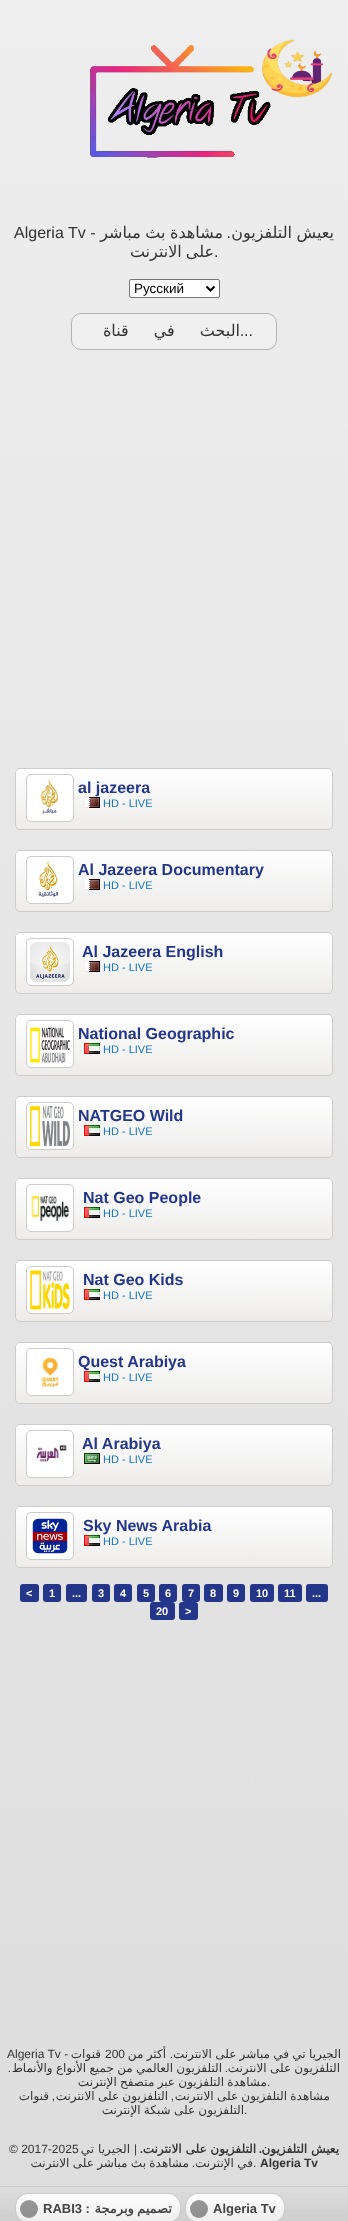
<svg xmlns="http://www.w3.org/2000/svg" width="348" height="2221" viewBox="0 0 348 2221">
  <defs>
    <linearGradient id="g1" gradientUnits="userSpaceOnUse" x1="0" y1="-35" x2="0" y2="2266"><stop offset="0" stop-color="#eee"/><stop offset="1" stop-color="#ddd"/></linearGradient>
    <clipPath id="clip1"><rect x="15" y="768" width="318" height="62" rx="5"/></clipPath>
    <linearGradient id="g2" gradientUnits="userSpaceOnUse" x1="174" y1="769" x2="174" y2="829"><stop offset="0" stop-color="#fff"/><stop offset="1" stop-color="#edeceb"/></linearGradient>
    <clipPath id="clip2"><rect x="15" y="850" width="318" height="62" rx="5"/></clipPath>
    <linearGradient id="g3" gradientUnits="userSpaceOnUse" x1="174" y1="851" x2="174" y2="911"><stop offset="0" stop-color="#fff"/><stop offset="1" stop-color="#edeceb"/></linearGradient>
    <clipPath id="clip3"><rect x="15" y="932" width="318" height="62" rx="5"/></clipPath>
    <linearGradient id="g4" gradientUnits="userSpaceOnUse" x1="174" y1="933" x2="174" y2="993"><stop offset="0" stop-color="#fff"/><stop offset="1" stop-color="#edeceb"/></linearGradient>
    <clipPath id="clip4"><rect x="15" y="1014" width="318" height="62" rx="5"/></clipPath>
    <linearGradient id="g5" gradientUnits="userSpaceOnUse" x1="174" y1="1015" x2="174" y2="1075"><stop offset="0" stop-color="#fff"/><stop offset="1" stop-color="#edeceb"/></linearGradient>
    <clipPath id="clip5"><rect x="15" y="1096" width="318" height="62" rx="5"/></clipPath>
    <linearGradient id="g6" gradientUnits="userSpaceOnUse" x1="174" y1="1097" x2="174" y2="1157"><stop offset="0" stop-color="#fff"/><stop offset="1" stop-color="#edeceb"/></linearGradient>
    <clipPath id="clip6"><rect x="15" y="1178" width="318" height="62" rx="5"/></clipPath>
    <linearGradient id="g7" gradientUnits="userSpaceOnUse" x1="174" y1="1179" x2="174" y2="1239"><stop offset="0" stop-color="#fff"/><stop offset="1" stop-color="#edeceb"/></linearGradient>
    <clipPath id="clip7"><rect x="15" y="1260" width="318" height="62" rx="5"/></clipPath>
    <linearGradient id="g8" gradientUnits="userSpaceOnUse" x1="174" y1="1261" x2="174" y2="1321"><stop offset="0" stop-color="#fff"/><stop offset="1" stop-color="#edeceb"/></linearGradient>
    <clipPath id="clip8"><rect x="15" y="1342" width="318" height="62" rx="5"/></clipPath>
    <linearGradient id="g9" gradientUnits="userSpaceOnUse" x1="174" y1="1343" x2="174" y2="1403"><stop offset="0" stop-color="#fff"/><stop offset="1" stop-color="#edeceb"/></linearGradient>
    <clipPath id="clip9"><rect x="15" y="1424" width="318" height="62" rx="5"/></clipPath>
    <linearGradient id="g10" gradientUnits="userSpaceOnUse" x1="174" y1="1425" x2="174" y2="1485"><stop offset="0" stop-color="#fff"/><stop offset="1" stop-color="#edeceb"/></linearGradient>
    <clipPath id="clip10"><rect x="15" y="1506" width="318" height="62" rx="5"/></clipPath>
    <linearGradient id="g11" gradientUnits="userSpaceOnUse" x1="174" y1="1507" x2="174" y2="1567"><stop offset="0" stop-color="#fff"/><stop offset="1" stop-color="#edeceb"/></linearGradient>
    <linearGradient id="g12" gradientUnits="userSpaceOnUse" x1="0" y1="2187" x2="0" y2="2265"><stop offset="0" stop-color="#ddd"/><stop offset="1" stop-color="#bbb"/></linearGradient>
    <linearGradient id="g13" gradientUnits="userSpaceOnUse" x1="186" y1="2194" x2="186" y2="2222"><stop offset="0" stop-color="#fdfdfd"/><stop offset="1" stop-color="#eee"/></linearGradient>
    <linearGradient id="g14" gradientUnits="userSpaceOnUse" x1="16" y1="2194" x2="16" y2="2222"><stop offset="0" stop-color="#fdfdfd"/><stop offset="1" stop-color="#eee"/></linearGradient>
  </defs>
  <rect width="100%" height="100%" fill="#fff"/>
  <path d="M0 0h348v2186H0z" fill="url(#g1)"/>
  <image x="90" y="39" width="242" height="119" href="img/1.png"/>
  <rect x="129.5" y="279.5" width="90" height="18" rx="1.5" fill="#fff" stroke="#767676"/>
  <path d="M206.5 286.5L210.5 290.5L214.5 286.5" fill="none" stroke="#000" stroke-width="2"/>
  <rect x="71.5" y="313.5" width="205" height="36" rx="9.5" fill="#f0f0f0" stroke="#b3b3b3"/>
  <g clip-path="url(#clip1)">
    <path d="M15 769h318v60H15z" fill="url(#g2)"/>
  </g>
  <rect x="15.5" y="768.5" width="317" height="61" rx="4.5" fill="none" stroke="#ccc"/>
  <rect x="26.5" y="774.5" width="47" height="47" rx="4.5" fill="#fff" stroke="#ccc"/>
  <image x="37" y="778" width="22" height="36" href="img/2.png"/>
  <image x="84" y="797" width="16" height="11" href="img/3.png"/>
  <g clip-path="url(#clip2)">
    <path d="M15 851h318v60H15z" fill="url(#g3)"/>
  </g>
  <rect x="15.5" y="850.5" width="317" height="61" rx="4.5" fill="none" stroke="#ccc"/>
  <rect x="26.5" y="856.5" width="47" height="47" rx="4.5" fill="#fff" stroke="#ccc"/>
  <image x="38" y="860" width="24" height="40" href="img/4.png"/>
  <image x="84" y="879" width="16" height="11" href="img/3.png"/>
  <g clip-path="url(#clip3)">
    <path d="M15 933h318v60H15z" fill="url(#g4)"/>
  </g>
  <rect x="15.5" y="932.5" width="317" height="61" rx="4.5" fill="none" stroke="#ccc"/>
  <rect x="26.5" y="938.5" width="47" height="47" rx="4.5" fill="#fff" stroke="#ccc"/>
  <image x="30" y="942" width="40" height="40" href="img/5.png"/>
  <image x="84" y="961" width="16" height="11" href="img/3.png"/>
  <g clip-path="url(#clip4)">
    <path d="M15 1015h318v60H15z" fill="url(#g5)"/>
  </g>
  <rect x="15.5" y="1014.5" width="317" height="61" rx="4.5" fill="none" stroke="#ccc"/>
  <rect x="26.5" y="1020.5" width="47" height="47" rx="4.5" fill="#fff" stroke="#ccc"/>
  <image x="30" y="1027" width="40" height="36" href="img/6.png"/>
  <image x="84" y="1043" width="16" height="11" href="img/7.png"/>
  <g clip-path="url(#clip5)">
    <path d="M15 1097h318v60H15z" fill="url(#g6)"/>
  </g>
  <rect x="15.5" y="1096.5" width="317" height="61" rx="4.5" fill="none" stroke="#ccc"/>
  <rect x="26.5" y="1102.5" width="47" height="47" rx="4.5" fill="#fff" stroke="#ccc"/>
  <image x="30" y="1106" width="40" height="40" href="img/8.png"/>
  <image x="84" y="1125" width="16" height="11" href="img/7.png"/>
  <g clip-path="url(#clip6)">
    <path d="M15 1179h318v60H15z" fill="url(#g7)"/>
  </g>
  <rect x="15.5" y="1178.5" width="317" height="61" rx="4.5" fill="none" stroke="#ccc"/>
  <rect x="26.5" y="1184.5" width="47" height="47" rx="4.5" fill="#fff" stroke="#ccc"/>
  <image x="31" y="1196" width="39" height="25" href="img/9.png"/>
  <image x="84" y="1207" width="16" height="11" href="img/7.png"/>
  <g clip-path="url(#clip7)">
    <path d="M15 1261h318v60H15z" fill="url(#g8)"/>
  </g>
  <rect x="15.5" y="1260.5" width="317" height="61" rx="4.5" fill="none" stroke="#ccc"/>
  <rect x="26.5" y="1266.5" width="47" height="47" rx="4.5" fill="#fff" stroke="#ccc"/>
  <image x="30" y="1270" width="40" height="40" href="img/10.png"/>
  <image x="84" y="1289" width="16" height="11" href="img/7.png"/>
  <g clip-path="url(#clip8)">
    <path d="M15 1343h318v60H15z" fill="url(#g9)"/>
  </g>
  <rect x="15.5" y="1342.5" width="317" height="61" rx="4.5" fill="none" stroke="#ccc"/>
  <rect x="26.5" y="1348.5" width="47" height="47" rx="4.5" fill="#fff" stroke="#ccc"/>
  <image x="41" y="1356" width="18" height="31" href="img/11.png"/>
  <image x="84" y="1371" width="16" height="11" href="img/7.png"/>
  <g clip-path="url(#clip9)">
    <path d="M15 1425h318v60H15z" fill="url(#g10)"/>
  </g>
  <rect x="15.5" y="1424.5" width="317" height="61" rx="4.5" fill="none" stroke="#ccc"/>
  <rect x="26.5" y="1430.5" width="47" height="47" rx="4.5" fill="#fff" stroke="#ccc"/>
  <image x="36" y="1444" width="31" height="19" href="img/12.png"/>
  <image x="84" y="1453" width="16" height="11" href="img/13.png"/>
  <g clip-path="url(#clip10)">
    <path d="M15 1507h318v60H15z" fill="url(#g11)"/>
  </g>
  <rect x="15.5" y="1506.5" width="317" height="61" rx="4.5" fill="none" stroke="#ccc"/>
  <rect x="26.5" y="1512.5" width="47" height="47" rx="4.5" fill="#fff" stroke="#ccc"/>
  <image x="32" y="1518" width="36" height="36" href="img/14.png"/>
  <image x="84" y="1535" width="16" height="11" href="img/7.png"/>
  <rect x="306" y="1584" width="22" height="18" rx="3" fill="#243689"/>
  <rect x="278" y="1584" width="24" height="18" rx="3" fill="#243689"/>
  <rect x="250" y="1584" width="24" height="18" rx="3" fill="#243689"/>
  <rect x="227" y="1584" width="18" height="18" rx="3" fill="#243689"/>
  <rect x="204" y="1584" width="19" height="18" rx="3" fill="#243689"/>
  <rect x="182" y="1584" width="18" height="18" rx="3" fill="#243689"/>
  <rect x="159" y="1584" width="18" height="18" rx="3" fill="#243689"/>
  <rect x="137" y="1584" width="18" height="18" rx="3" fill="#243689"/>
  <rect x="114" y="1584" width="18" height="18" rx="3" fill="#243689"/>
  <rect x="92" y="1584" width="18" height="18" rx="3" fill="#243689"/>
  <rect x="66" y="1584" width="21" height="18" rx="3" fill="#243689"/>
  <rect x="43" y="1584" width="18" height="18" rx="3" fill="#243689"/>
  <rect x="20" y="1584" width="19" height="18" rx="3" fill="#243689"/>
  <rect x="179" y="1602" width="19" height="18" rx="3" fill="#243689"/>
  <rect x="150" y="1602" width="25" height="18" rx="3" fill="#243689"/>
  <path d="M0 2187h348v34H0z" fill="url(#g12)"/>
  <path d="M0 2186h348v1H0z" fill="#ccc"/>
  <rect x="186" y="2194" width="98" height="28" rx="12" fill="url(#g13)"/>
  <rect x="185.5" y="2193.5" width="99" height="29" rx="12.5" fill="none" stroke="#ccc"/>
  <path d="M193 2194h85v1H193z" fill="#ffffff4d"/>
  <circle cx="199" cy="2209" r="9" fill="#00000066"/>
  <rect x="16" y="2194" width="164" height="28" rx="12" fill="url(#g14)"/>
  <rect x="15.5" y="2193.5" width="165" height="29" rx="12.5" fill="none" stroke="#ccc"/>
  <path d="M23 2194h151v1H23z" fill="#ffffff4d"/>
  <circle cx="29" cy="2209" r="9" fill="#00000066"/>
  <text x="334" y="238" word-spacing="-0.5" font-family="DejaVu Sans" font-size="16" direction="rtl" fill="#333">يعيش التلفزيون</text>
  <text x="231" y="238" font-family="Liberation Sans" font-size="16" direction="rtl" fill="#333">.</text>
  <text x="223" y="238" word-spacing="-0.5" font-family="DejaVu Sans" font-size="16" direction="rtl" fill="#333">مشاهدة بث مباشر</text>
  <g font-family="Liberation Sans" font-size="16" fill="#333">
    <text x="14" y="238">Algeria Tv -</text>
    <text x="214" y="257">.</text>
  </g>
  <text x="214" y="257" word-spacing="-1" font-family="DejaVu Sans" font-size="16" direction="rtl" fill="#333">على الانترنت</text>
  <text x="134" y="293" font-family="Liberation Sans" font-size="13.5" fill="#000">Русский</text>
  <text x="253" y="336" font-family="Liberation Sans" font-size="16" direction="rtl" fill="#333">...</text>
  <text x="240" y="336" word-spacing="20" font-family="DejaVu Sans" font-size="16" direction="rtl" fill="#333">البحث في قناة</text>
  <text x="78" y="793" font-family="Liberation Sans" font-size="16" font-weight="bold" fill="#243689">al jazeera</text>
  <text x="103" y="807" font-family="Liberation Sans" font-size="11" fill="#1373bc">HD - LIVE</text>
  <text x="78" y="875" font-family="Liberation Sans" font-size="16" font-weight="bold" fill="#243689">Al Jazeera Documentary</text>
  <text x="103" y="889" font-family="Liberation Sans" font-size="11" fill="#1373bc">HD - LIVE</text>
  <text x="82" y="957" font-family="Liberation Sans" font-size="16" font-weight="bold" fill="#243689">Al Jazeera English</text>
  <text x="103" y="971" font-family="Liberation Sans" font-size="11" fill="#1373bc">HD - LIVE</text>
  <text x="78" y="1039" font-family="Liberation Sans" font-size="16" font-weight="bold" fill="#243689">National Geographic</text>
  <text x="103" y="1053" font-family="Liberation Sans" font-size="11" fill="#1373bc">HD - LIVE</text>
  <text x="78" y="1121" font-family="Liberation Sans" font-size="16" font-weight="bold" fill="#243689">NATGEO Wild</text>
  <text x="103" y="1135" font-family="Liberation Sans" font-size="11" fill="#1373bc">HD - LIVE</text>
  <text x="83" y="1203" font-family="Liberation Sans" font-size="16" font-weight="bold" fill="#243689">Nat Geo People</text>
  <text x="103" y="1217" font-family="Liberation Sans" font-size="11" fill="#1373bc">HD - LIVE</text>
  <text x="83" y="1285" font-family="Liberation Sans" font-size="16" font-weight="bold" fill="#243689">Nat Geo Kids</text>
  <text x="103" y="1299" font-family="Liberation Sans" font-size="11" fill="#1373bc">HD - LIVE</text>
  <text x="78" y="1367" font-family="Liberation Sans" font-size="16" font-weight="bold" fill="#243689">Quest Arabiya</text>
  <text x="103" y="1381" font-family="Liberation Sans" font-size="11" fill="#1373bc">HD - LIVE</text>
  <text x="82" y="1449" font-family="Liberation Sans" font-size="16" font-weight="bold" fill="#243689">Al Arabiya</text>
  <text x="103" y="1463" font-family="Liberation Sans" font-size="11" fill="#1373bc">HD - LIVE</text>
  <text x="83" y="1531" font-family="Liberation Sans" font-size="16" font-weight="bold" fill="#243689">Sky News Arabia</text>
  <text x="103" y="1545" font-family="Liberation Sans" font-size="11" fill="#1373bc">HD - LIVE</text>
  <g font-family="Liberation Sans" font-size="11" font-weight="bold" fill="#fff">
    <text x="312" y="1597">...</text>
    <text x="284" y="1597">11</text>
    <text x="256" y="1597">10</text>
    <text x="233" y="1597">9</text>
    <text x="210" y="1597">8</text>
    <text x="188" y="1597">7</text>
    <text x="165" y="1597">6</text>
    <text x="143" y="1597">5</text>
    <text x="120" y="1597">4</text>
    <text x="98" y="1597">3</text>
    <text x="72" y="1597">...</text>
    <text x="49" y="1597">1</text>
    <text x="26" y="1597">&lt;</text>
    <text x="185" y="1615">&gt;</text>
    <text x="156" y="1615">20</text>
  </g>
  <text x="341" y="2058" word-spacing="-0.5" font-family="DejaVu Sans" font-size="12" direction="rtl" fill="#333">الجيريا تي في مباشر على الانترنت</text>
  <text x="173" y="2058" font-family="Liberation Sans" font-size="12" direction="rtl" fill="#333">.</text>
  <text x="166" y="2058" word-spacing="-0.5" font-family="DejaVu Sans" font-size="12" direction="rtl" fill="#333">أكثر من</text>
  <text x="105" y="2058" font-family="Liberation Sans" font-size="12" fill="#333">200</text>
  <text x="101" y="2058" font-family="DejaVu Sans" font-size="12" direction="rtl" fill="#333">قنوات</text>
  <text x="7" y="2058" font-family="Liberation Sans" font-size="12" fill="#333">Algeria Tv -</text>
  <text x="340" y="2072" word-spacing="-0.5" font-family="DejaVu Sans" font-size="12" direction="rtl" fill="#333">التلفزيون على الانترنت</text>
  <text x="228" y="2072" font-family="Liberation Sans" font-size="12" direction="rtl" fill="#333">.</text>
  <text x="222" y="2072" word-spacing="-0.5" font-family="DejaVu Sans" font-size="12" direction="rtl" fill="#333">التلفزيون العالمي من جميع الأنواع والأنماط</text>
  <text x="11" y="2072" font-family="Liberation Sans" font-size="12" direction="rtl" fill="#333">.</text>
  <text x="267" y="2086" font-family="Liberation Sans" font-size="12" fill="#333">.</text>
  <g font-family="DejaVu Sans" font-size="12" direction="rtl" fill="#333">
    <text x="267" y="2086" word-spacing="-0.5">مشاهدة التلفزيون عبر متصفح الإنترنت</text>
    <text x="330" y="2100" word-spacing="-0.5">مشاهدة التلفزيون على الانترنت</text>
  </g>
  <text x="174" y="2100" font-family="Liberation Sans" font-size="12" direction="rtl" fill="#333">,</text>
  <text x="168" y="2100" word-spacing="-0.5" font-family="DejaVu Sans" font-size="12" direction="rtl" fill="#333">التلفزيون على الانترنت</text>
  <text x="55" y="2100" font-family="Liberation Sans" font-size="12" direction="rtl" fill="#333">,</text>
  <text x="49" y="2100" font-family="DejaVu Sans" font-size="12" direction="rtl" fill="#333">قنوات</text>
  <text x="244" y="2114" font-family="Liberation Sans" font-size="12" fill="#333">.</text>
  <text x="244" y="2114" word-spacing="-0.5" font-family="DejaVu Sans" font-size="12" direction="rtl" fill="#333">التلفزيون على شبكة الإنترنت</text>
  <text x="339" y="2153" font-family="DejaVu Sans" font-size="12" font-weight="bold" direction="rtl" fill="#333">يعيش التلفزيون</text>
  <text x="262" y="2153" font-family="Liberation Sans" font-size="12" font-weight="bold" direction="rtl" fill="#333">.</text>
  <text x="256" y="2153" font-family="DejaVu Sans" font-size="12" font-weight="bold" direction="rtl" fill="#333">التلفزيون على الانترنت</text>
  <text x="143" y="2153" font-family="Liberation Sans" font-size="12" font-weight="bold" direction="rtl" fill="#333">.</text>
  <text x="137" y="2153" font-family="Liberation Sans" font-size="12" direction="rtl" fill="#333">|</text>
  <text x="130" y="2153" font-family="DejaVu Sans" font-size="12" direction="rtl" fill="#333">الجيريا تي</text>
  <text x="9" y="2153" font-family="Liberation Sans" font-size="12" fill="#333">© 2017-2025</text>
  <text x="260" y="2167" font-family="Liberation Sans" font-size="12" font-weight="bold" fill="#333">Algeria Tv</text>
  <text x="253" y="2167" font-family="Liberation Sans" font-size="12" fill="#333">.</text>
  <text x="253" y="2167" word-spacing="-0.5" font-family="DejaVu Sans" font-size="12" direction="rtl" fill="#333">في الإنترنت</text>
  <text x="195" y="2167" font-family="Liberation Sans" font-size="12" direction="rtl" fill="#333">.</text>
  <text x="189" y="2167" word-spacing="-0.5" font-family="DejaVu Sans" font-size="12" direction="rtl" fill="#333">مشاهدة بث مباشر على الانترنت</text>
  <text x="213" y="2213" font-family="Liberation Sans" font-size="13" font-weight="bold" fill="#444">Algeria Tv</text>
  <text x="172" y="2213" word-spacing="-1" font-family="DejaVu Sans" font-size="13" font-weight="bold" direction="rtl" fill="#444">تصميم وبرمجة</text>
  <text x="43" y="2213" font-family="Liberation Sans" font-size="13" font-weight="bold" fill="#444">RABI3 :</text>
</svg>
